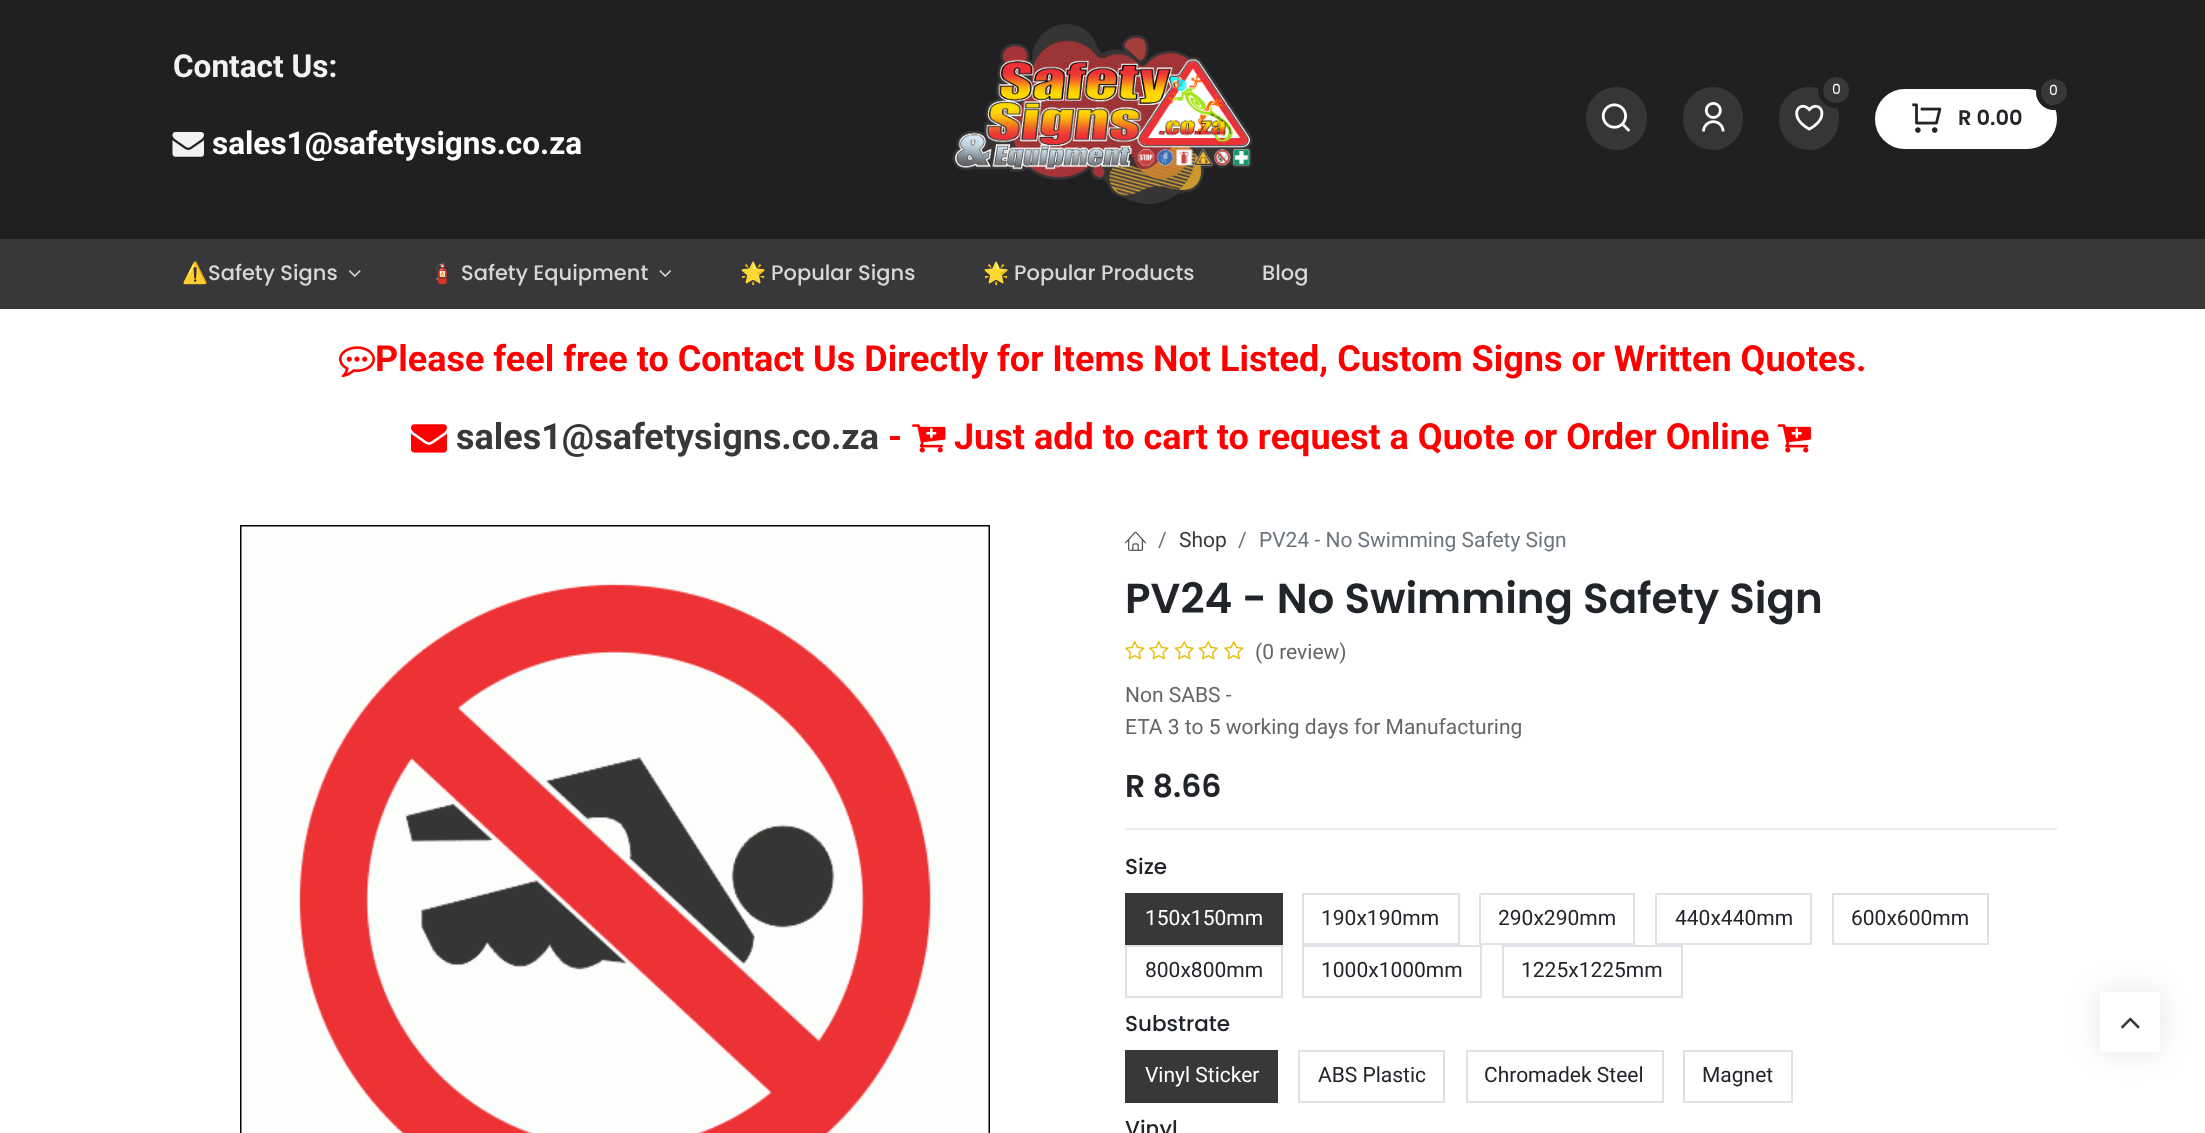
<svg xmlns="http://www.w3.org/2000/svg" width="2205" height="1133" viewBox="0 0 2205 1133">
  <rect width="100%" height="100%" fill="#fff"/>
  <path d="M0 0h2205v239H0z" fill="#202022"/>
  <image x="172" y="132" width="32" height="25" href="img/1.png"/>
  <image x="952" y="24" width="301" height="180" href="img/2.png"/>
  <rect x="1586" y="87" width="61" height="63" rx="30.5" fill="#363638"/>
  <image x="1601" y="103" width="30" height="29" href="img/3.png"/>
  <rect x="1683" y="87" width="60" height="63" rx="30" fill="#363638"/>
  <image x="1702" y="102" width="23" height="30" href="img/4.png"/>
  <rect x="1779" y="87" width="60" height="63" rx="30" fill="#363638"/>
  <circle cx="1836.5" cy="90.5" r="13.5" fill="#38383b"/>
  <image x="1795" y="104" width="29" height="27" href="img/5.png"/>
  <rect x="1876" y="90" width="180" height="58" rx="29" fill="#fff" stroke="#fff" stroke-width="2"/>
  <circle cx="2053.5" cy="91.5" r="13.5" fill="#38383b"/>
  <image x="1912" y="103" width="30" height="30" href="img/6.png"/>
  <path d="M0 239h2205v70H0z" fill="#38383b"/>
  <image x="349" y="270" width="12" height="7" href="img/7.png"/>
  <image x="659" y="270" width="12" height="7" href="img/8.png"/>
  <image x="339" y="346" width="36" height="32" href="img/9.png"/>
  <image x="411" y="424" width="36" height="29" href="img/10.png"/>
  <image x="912" y="424" width="34" height="29" href="img/11.png"/>
  <image x="1777" y="424" width="34" height="29" href="img/12.png"/>
  <image x="240" y="525" width="750" height="608" href="img/13.png"/>
  <image x="1125" y="531" width="21" height="20" href="img/14.png"/>
  <image x="1125" y="640" width="20" height="20" href="img/15.png"/>
  <image x="1149" y="640" width="20" height="20" href="img/15.png"/>
  <image x="1174" y="640" width="20" height="20" href="img/16.png"/>
  <image x="1198" y="640" width="20" height="20" href="img/16.png"/>
  <image x="1224" y="640" width="20" height="20" href="img/15.png"/>
  <path d="M1125 828h932v2H1125z" fill="#e9eaea"/>
  <path d="M1125 893h158v52H1125z" fill="#38383b"/>
  <path d="M1303 894h156v50H1303z" fill="none" stroke="#dee2e6" stroke-width="2"/>
  <path d="M1480 894h154v50H1480z" fill="none" stroke="#dee2e6" stroke-width="2"/>
  <path d="M1656 894h155v50H1656z" fill="none" stroke="#dee2e6" stroke-width="2"/>
  <path d="M1833 894h155v50H1833z" fill="none" stroke="#dee2e6" stroke-width="2"/>
  <path d="M1126 946h156v51H1126z" fill="none" stroke="#dee2e6" stroke-width="2"/>
  <path d="M1303 946h178v51H1303z" fill="none" stroke="#dee2e6" stroke-width="2"/>
  <path d="M1503 946h179v51H1503z" fill="none" stroke="#dee2e6" stroke-width="2"/>
  <path d="M1125 1050h153v53H1125z" fill="#38383b"/>
  <path d="M1299 1051h145v51H1299z" fill="none" stroke="#dee2e6" stroke-width="2"/>
  <path d="M1467 1051h196v51H1467z" fill="none" stroke="#dee2e6" stroke-width="2"/>
  <path d="M1684 1051h108v51H1684z" fill="none" stroke="#dee2e6" stroke-width="2"/>
  <path d="M2100 992h60v60H2100z" fill="#0000001a" filter="blur(15px)"/>
  <path d="M2100 992h60v60H2100z" fill="#fff"/>
  <image x="2121" y="1017" width="19" height="12" href="img/17.png"/>
  <text x="173" y="77" font-family="Roboto" font-size="31.5" font-weight="bold" fill="#f2f2f3">Contact Us:</text>
  <text x="212" y="154" font-family="Roboto" font-size="31.5" font-weight="bold" fill="#fff">sales1@safetysigns.co.za</text>
  <text x="1832" y="94" font-family="Poppins" font-size="14" fill="#fff">0</text>
  <circle cx="1836" cy="90" r="15.5" fill="none" stroke="#202022" stroke-width="5"/>
  <text x="2049" y="95" font-family="Poppins" font-size="14" fill="#fff">0</text>
  <circle cx="2054" cy="92" r="15.5" fill="none" stroke="#202022" stroke-width="5"/>
  <text x="1958" y="125" font-family="Poppins" font-size="21" font-weight="600" fill="#212529">R 0.00</text>
  <text x="182" y="280" font-family="Noto Color Emoji" font-size="21" fill="#d7d7d8">⚠️</text>
  <text x="208" y="280" font-family="Poppins" font-size="21" font-weight="500" fill="#d7d7d8">Safety Signs</text>
  <text x="429" y="280" font-family="Noto Color Emoji" font-size="21" fill="#d7d7d8">🧯️</text>
  <text x="461" y="280" font-family="Poppins" font-size="21" font-weight="500" fill="#d7d7d8">Safety Equipment</text>
  <text x="740" y="280" font-family="Noto Color Emoji" font-size="21" fill="#d7d7d8">🌟</text>
  <text x="771" y="280" font-family="Poppins" font-size="21" font-weight="500" fill="#d7d7d8">Popular Signs</text>
  <text x="983" y="280" font-family="Noto Color Emoji" font-size="21" fill="#d7d7d8">🌟</text>
  <g font-family="Poppins" font-size="21" font-weight="500" fill="#d7d7d8">
    <text x="1014" y="280">Popular Products</text>
    <text x="1262" y="280">Blog</text>
  </g>
  <text x="375" y="371" font-family="Roboto" font-size="36" font-weight="bold" fill="#f00">Please feel free to Contact Us Directly for Items Not Listed, Custom Signs or Written Quotes.</text>
  <text x="456" y="449" font-family="Roboto" font-size="36" font-weight="bold" fill="#38383b">sales1@safetysigns.co.za</text>
  <g font-family="Roboto" font-size="36" font-weight="bold" fill="#f00">
    <text x="888" y="449">-</text>
    <text x="954" y="449">Just add to cart to request a Quote or Order Online</text>
  </g>
  <text x="1158" y="547" font-family="Roboto" font-size="21" fill="#6c757d">/</text>
  <text x="1179" y="547" font-family="Roboto" font-size="21" fill="#38383b">Shop</text>
  <g font-family="Roboto" font-size="21" fill="#6c757d">
    <text x="1238" y="547">/</text>
    <text x="1259" y="547">PV24 - No Swimming Safety Sign</text>
  </g>
  <text x="1125" y="613" font-family="Poppins" font-size="42" font-weight="600" fill="#212529">PV24 - No Swimming Safety Sign</text>
  <g font-family="Roboto" font-size="21" fill="#646669">
    <text x="1255" y="659">(0 review)</text>
    <text x="1125" y="702">Non SABS -</text>
    <text x="1125" y="734">ETA 3 to 5 working days for Manufacturing</text>
  </g>
  <text x="1125" y="797" font-family="Poppins" font-size="31.5" font-weight="600" fill="#212529">R 8.66</text>
  <text x="1125" y="874" font-family="Poppins" font-size="21.5" font-weight="500" fill="#212529">Size</text>
  <text x="1145" y="925" font-family="Roboto" font-size="21" fill="#fff">150x150mm</text>
  <g font-family="Roboto" font-size="21" fill="#212529">
    <text x="1321" y="925">190x190mm</text>
    <text x="1498" y="925">290x290mm</text>
    <text x="1675" y="925">440x440mm</text>
    <text x="1851" y="925">600x600mm</text>
    <text x="1145" y="977">800x800mm</text>
    <text x="1321" y="977">1000x1000mm</text>
    <text x="1521" y="977">1225x1225mm</text>
  </g>
  <text x="1125" y="1031" font-family="Poppins" font-size="21.5" font-weight="500" fill="#212529">Substrate</text>
  <text x="1145" y="1082" font-family="Roboto" font-size="21" fill="#fff">Vinyl Sticker</text>
  <g font-family="Roboto" font-size="21" fill="#212529">
    <text x="1318" y="1082">ABS Plastic</text>
    <text x="1484" y="1082">Chromadek Steel</text>
    <text x="1702" y="1082">Magnet</text>
  </g>
  <text x="1125" y="1136" font-family="Poppins" font-size="21.5" font-weight="500" fill="#212529">Vinyl</text>
</svg>
